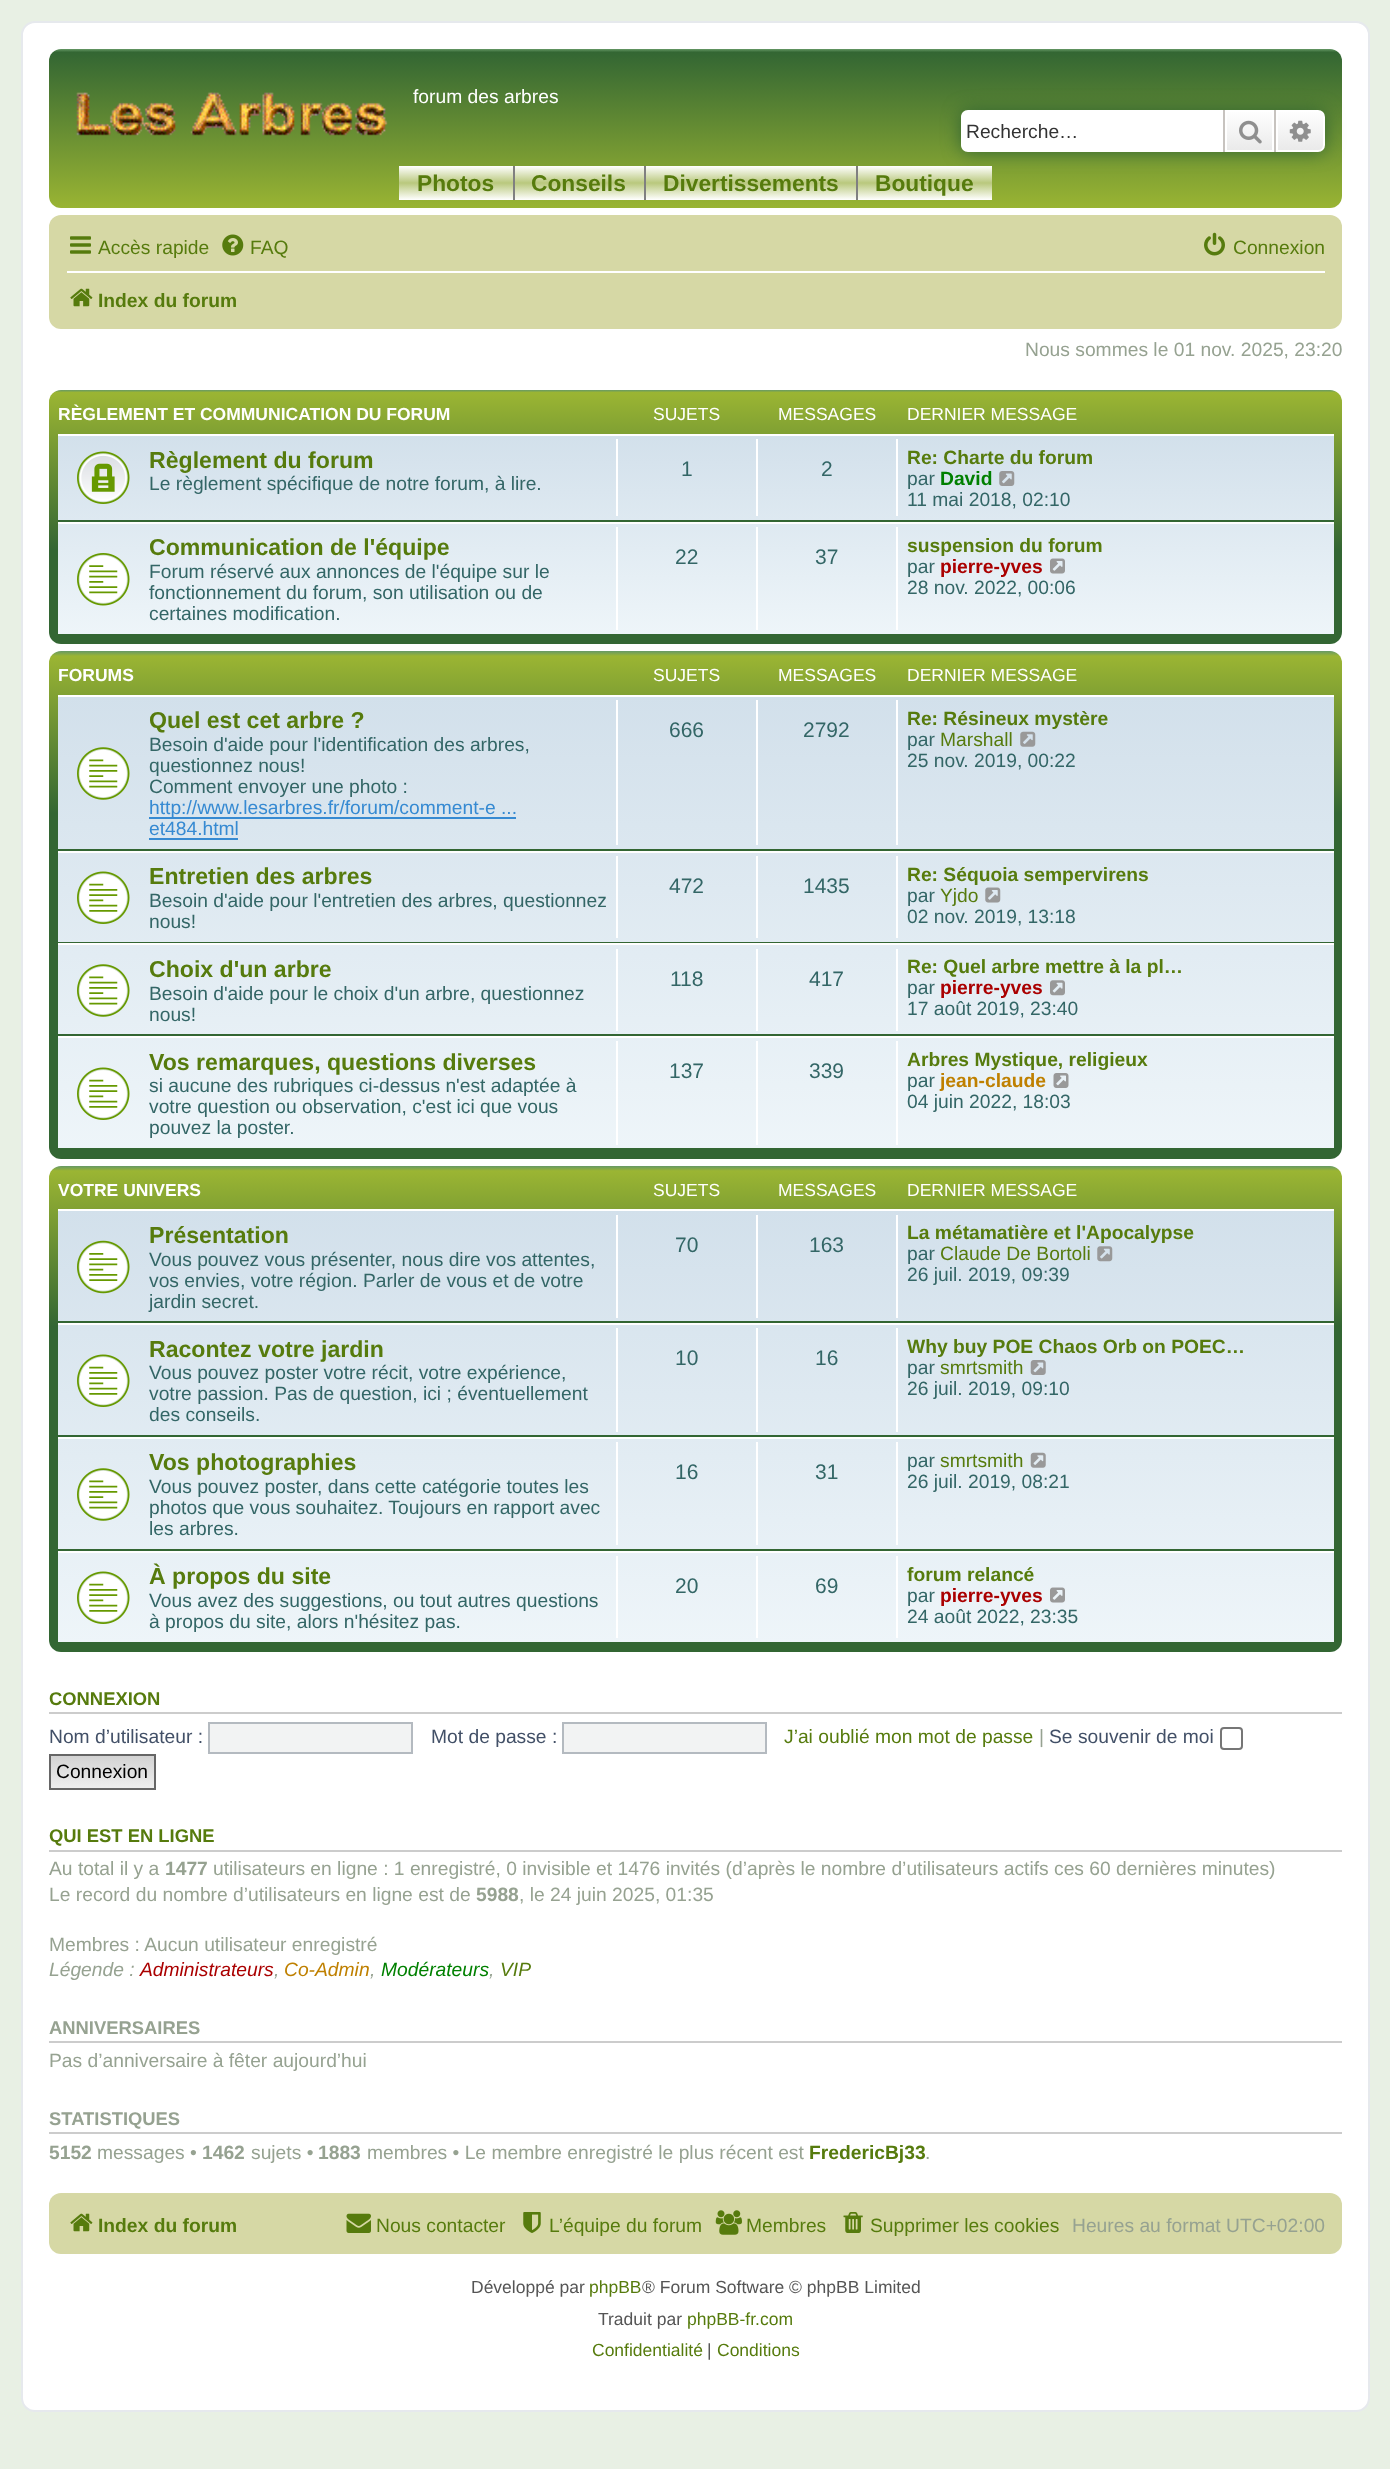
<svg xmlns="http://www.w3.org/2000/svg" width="1390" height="2469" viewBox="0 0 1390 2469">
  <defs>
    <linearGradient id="g1" gradientUnits="userSpaceOnUse" x1="696" y1="49" x2="696" y2="210"><stop offset="0" stop-color="#696"/><stop offset="0.02" stop-color="#363"/><stop offset="1" stop-color="#9bb533"/></linearGradient>
    <linearGradient id="g2" gradientUnits="userSpaceOnUse" x1="1250" y1="110" x2="1250" y2="152"><stop offset="0" stop-color="#fff"/><stop offset="1" stop-color="#e9e9e9"/></linearGradient>
    <linearGradient id="g3" gradientUnits="userSpaceOnUse" x1="1300" y1="110" x2="1300" y2="152"><stop offset="0" stop-color="#fff"/><stop offset="1" stop-color="#e9e9e9"/></linearGradient>
    <linearGradient id="g4" gradientUnits="userSpaceOnUse" x1="456" y1="166" x2="456" y2="200"><stop offset="0" stop-color="#fff"/><stop offset="0.5" stop-color="#b9c87d"/><stop offset="1" stop-color="#fff"/></linearGradient>
    <linearGradient id="g5" gradientUnits="userSpaceOnUse" x1="579" y1="166" x2="579" y2="200"><stop offset="0" stop-color="#fff"/><stop offset="0.5" stop-color="#b9c87d"/><stop offset="1" stop-color="#fff"/></linearGradient>
    <linearGradient id="g6" gradientUnits="userSpaceOnUse" x1="751" y1="166" x2="751" y2="200"><stop offset="0" stop-color="#fff"/><stop offset="0.5" stop-color="#b9c87d"/><stop offset="1" stop-color="#fff"/></linearGradient>
    <linearGradient id="g7" gradientUnits="userSpaceOnUse" x1="925" y1="166" x2="925" y2="200"><stop offset="0" stop-color="#fff"/><stop offset="0.5" stop-color="#b9c87d"/><stop offset="1" stop-color="#fff"/></linearGradient>
    <linearGradient id="g8" gradientUnits="userSpaceOnUse" x1="696" y1="390" x2="696" y2="644"><stop offset="0" stop-color="#696"/><stop offset="0.01" stop-color="#9bb533"/><stop offset="0.63" stop-color="#363"/><stop offset="1" stop-color="#363"/></linearGradient>
    <linearGradient id="g9" gradientUnits="userSpaceOnUse" x1="696" y1="434" x2="696" y2="635"><stop offset="0" stop-color="#d2e0eb"/><stop offset="1" stop-color="#eef5f9"/></linearGradient>
    <linearGradient id="g10" gradientUnits="userSpaceOnUse" x1="696" y1="651" x2="696" y2="1159"><stop offset="0" stop-color="#696"/><stop offset="0.01" stop-color="#9bb533"/><stop offset="0.32" stop-color="#363"/><stop offset="1" stop-color="#363"/></linearGradient>
    <linearGradient id="g11" gradientUnits="userSpaceOnUse" x1="696" y1="695" x2="696" y2="1150"><stop offset="0" stop-color="#d2e0eb"/><stop offset="1" stop-color="#eef5f9"/></linearGradient>
    <linearGradient id="g12" gradientUnits="userSpaceOnUse" x1="696" y1="1166" x2="696" y2="1652"><stop offset="0" stop-color="#696"/><stop offset="0.01" stop-color="#9bb533"/><stop offset="0.33" stop-color="#363"/><stop offset="1" stop-color="#363"/></linearGradient>
    <linearGradient id="g13" gradientUnits="userSpaceOnUse" x1="696" y1="1209" x2="696" y2="1643"><stop offset="0" stop-color="#d2e0eb"/><stop offset="1" stop-color="#eef5f9"/></linearGradient>
    <linearGradient id="g14" gradientUnits="userSpaceOnUse" x1="102" y1="1755" x2="102" y2="1789"><stop offset="0" stop-color="#d2d2d2"/><stop offset="1" stop-color="#efefef"/></linearGradient>
  </defs>
  <rect width="100%" height="100%" fill="#e8f0e4"/>
  <rect x="22" y="22" width="1347" height="2389" rx="13" fill="#fff" stroke="#e6e9ed" stroke-width="2"/>
  <rect x="49" y="49" width="1293" height="159" rx="12" fill="url(#g1)"/>
  <image x="76" y="92" width="312" height="44" href="img/1.png"/>
  <rect x="961" y="110" width="364" height="42" rx="7" fill="#363" filter="blur(9px)"/>
  <path d="M968 110H1223V152H968C964 152 961 149 961 145V117C961 113 964 110 968 110Z" fill="#fff"/>
  <path d="M1227 112h45v38H1227z" fill="url(#g2)"/>
  <path d="M1226 111h47v40H1226z" fill="none" stroke="#fff" stroke-width="2"/>
  <path d="M1274 110h2v42H1274z" fill="#c7c3bf"/>
  <path d="M1223 110h2v42H1223z" fill="#c7c3bf"/>
  <image x="1239" y="120" width="23" height="24" href="img/2.png"/>
  <path d="M1277 111H1318C1321.5 111 1324 113.5 1324 117V145C1324 148.5 1321.5 151 1318 151H1277Z" fill="url(#g3)" stroke="#fff" stroke-width="2"/>
  <image x="1289" y="120" width="22" height="22" href="img/3.png"/>
  <path d="M399 166h114v34H399z" fill="url(#g4)"/>
  <path d="M513 166h2v34H513z" fill="#808080"/>
  <path d="M515 166h129v34H515z" fill="url(#g5)"/>
  <path d="M644 166h2v34H644z" fill="#808080"/>
  <path d="M646 166h210v34H646z" fill="url(#g6)"/>
  <path d="M856 166h2v34H856z" fill="#808080"/>
  <path d="M858 166h134v34H858z" fill="url(#g7)"/>
  <rect x="49" y="215" width="1293" height="114" rx="12" fill="#d6d8a5"/>
  <image x="70" y="236" width="21" height="18" href="img/4.png"/>
  <image x="222" y="234" width="22" height="22" href="img/5.png"/>
  <image x="1204" y="232" width="21" height="24" href="img/6.png"/>
  <path d="M67 271h1258v2H67z" fill="#fff"/>
  <image x="70" y="288" width="23" height="19" href="img/7.png"/>
  <rect x="49" y="390" width="1293" height="254" rx="12" fill="url(#g8)"/>
  <path d="M58 436h1276v198H58z" fill="url(#g9)"/>
  <path d="M58 434h1276v2H58z" fill="#fff"/>
  <path d="M58 520h1276v2H58z" fill="#363"/>
  <image x="77" y="451" width="53" height="53" href="img/8.png"/>
  <path d="M616 439h2v77H616z" fill="#fff"/>
  <path d="M756 439h2v77H756z" fill="#fff"/>
  <path d="M896 439h2v77H896z" fill="#fff"/>
  <image x="999" y="471" width="16" height="15" href="img/9.png"/>
  <path d="M58 522h1276v2H58z" fill="#fff"/>
  <image x="77" y="553" width="53" height="53" href="img/10.png"/>
  <path d="M616 527h2v103H616z" fill="#fff"/>
  <path d="M756 527h2v103H756z" fill="#fff"/>
  <path d="M896 527h2v103H896z" fill="#fff"/>
  <image x="1050" y="558" width="15" height="16" href="img/11.png"/>
  <rect x="49" y="651" width="1293" height="508" rx="12" fill="url(#g10)"/>
  <path d="M58 697h1276v451H58z" fill="url(#g11)"/>
  <path d="M58 695h1276v2H58z" fill="#fff"/>
  <path d="M58 849h1276v2H58z" fill="#363"/>
  <image x="77" y="747" width="53" height="53" href="img/12.png"/>
  <path d="M149 817h367v2H149z" fill="#368ad2"/>
  <path d="M149 838h89v2H149z" fill="#368ad2"/>
  <path d="M616 700h2v145H616z" fill="#fff"/>
  <path d="M756 700h2v145H756z" fill="#fff"/>
  <path d="M896 700h2v145H896z" fill="#fff"/>
  <image x="1020" y="731" width="16" height="16" href="img/13.png"/>
  <path d="M58 851h1276v2H58z" fill="#fff"/>
  <path d="M58 942h1276v1H58z" fill="#363"/>
  <image x="77" y="871" width="53" height="53" href="img/14.png"/>
  <path d="M616 856h2v82H616z" fill="#fff"/>
  <path d="M756 856h2v82H756z" fill="#fff"/>
  <path d="M896 856h2v82H896z" fill="#fff"/>
  <image x="985" y="887" width="16" height="16" href="img/15.png"/>
  <path d="M58 943h1276v2H58z" fill="#fff"/>
  <path d="M58 1034h1276v2H58z" fill="#363"/>
  <image x="77" y="964" width="53" height="53" href="img/16.png"/>
  <path d="M616 949h2v82H616z" fill="#fff"/>
  <path d="M756 949h2v82H756z" fill="#fff"/>
  <path d="M896 949h2v82H896z" fill="#fff"/>
  <image x="1050" y="980" width="15" height="16" href="img/17.png"/>
  <path d="M58 1036h1276v2H58z" fill="#fff"/>
  <image x="77" y="1067" width="53" height="53" href="img/18.png"/>
  <path d="M616 1041h2v104H616z" fill="#fff"/>
  <path d="M756 1041h2v104H756z" fill="#fff"/>
  <path d="M896 1041h2v104H896z" fill="#fff"/>
  <image x="1053" y="1073" width="16" height="15" href="img/19.png"/>
  <rect x="49" y="1166" width="1293" height="486" rx="12" fill="url(#g12)"/>
  <path d="M58 1211h1276v431H58z" fill="url(#g13)"/>
  <path d="M58 1209h1276v2H58z" fill="#fff"/>
  <path d="M58 1321h1276v2H58z" fill="#363"/>
  <image x="77" y="1240" width="53" height="54" href="img/20.png"/>
  <path d="M616 1215h2v103H616z" fill="#fff"/>
  <path d="M756 1215h2v103H756z" fill="#fff"/>
  <path d="M896 1215h2v103H896z" fill="#fff"/>
  <image x="1097" y="1246" width="16" height="16" href="img/21.png"/>
  <path d="M58 1323h1276v2H58z" fill="#fff"/>
  <path d="M58 1435h1276v2H58z" fill="#363"/>
  <image x="77" y="1354" width="53" height="53" href="img/22.png"/>
  <path d="M616 1328h2v104H616z" fill="#fff"/>
  <path d="M756 1328h2v104H756z" fill="#fff"/>
  <path d="M896 1328h2v104H896z" fill="#fff"/>
  <image x="1030" y="1360" width="16" height="15" href="img/23.png"/>
  <path d="M58 1437h1276v2H58z" fill="#fff"/>
  <path d="M58 1549h1276v2H58z" fill="#363"/>
  <image x="77" y="1468" width="53" height="53" href="img/24.png"/>
  <path d="M616 1442h2v103H616z" fill="#fff"/>
  <path d="M756 1442h2v103H756z" fill="#fff"/>
  <path d="M896 1442h2v103H896z" fill="#fff"/>
  <image x="1030" y="1452" width="16" height="16" href="img/25.png"/>
  <path d="M58 1551h1276v2H58z" fill="#fff"/>
  <image x="77" y="1571" width="53" height="53" href="img/26.png"/>
  <path d="M616 1556h2v82H616z" fill="#fff"/>
  <path d="M756 1556h2v82H756z" fill="#fff"/>
  <path d="M896 1556h2v82H896z" fill="#fff"/>
  <image x="1050" y="1587" width="15" height="16" href="img/27.png"/>
  <path d="M49 1712h1293v2H49z" fill="#ccc"/>
  <path d="M209 1723h203v30H209z" fill="#f2f3f3" stroke="#b4bac0" stroke-width="2"/>
  <path d="M563 1723h203v30H563z" fill="#f2f3f3" stroke="#b4bac0" stroke-width="2"/>
  <rect x="1221" y="1728" width="21" height="21" rx="3" fill="none" stroke="#767676" stroke-width="2"/>
  <path d="M51 1756h103v32H51z" fill="url(#g14)"/>
  <path d="M50 1755h105v34H50z" fill="none" stroke="#666" stroke-width="2"/>
  <path d="M49 1850h1293v2H49z" fill="#ccc"/>
  <path d="M49 2041h1293v2H49z" fill="#ccc"/>
  <path d="M49 2132h1293v2H49z" fill="#ccc"/>
  <rect x="49" y="2193" width="1293" height="61" rx="12" fill="#d6d8a5"/>
  <image x="70" y="2213" width="23" height="19" href="img/7.png"/>
  <image x="346" y="2213" width="25" height="20" href="img/28.png"/>
  <image x="523" y="2212" width="18" height="21" href="img/29.png"/>
  <image x="715" y="2210" width="27" height="25" href="img/30.png"/>
  <image x="843" y="2212" width="20" height="21" href="img/31.png"/>
  <text x="413" y="103" font-family="Liberation Sans" font-size="19.25" fill="#fff">forum des arbres</text>
  <text x="966" y="138" font-family="Liberation Sans" font-size="19.25" fill="#333">Recherche…</text>
  <g font-family="Liberation Sans" font-size="22.75" font-weight="bold" fill="#567b0d">
    <text x="417" y="191">Photos</text>
    <text x="531" y="191">Conseils</text>
    <text x="663" y="191">Divertissements</text>
    <text x="875" y="191">Boutique</text>
  </g>
  <g font-family="Liberation Sans" font-size="19.25" fill="#567b0d">
    <text x="98" y="254">Accès rapide</text>
    <text x="250" y="254">FAQ</text>
    <text x="1233" y="254">Connexion</text>
  </g>
  <text x="98" y="307" font-family="Liberation Sans" font-size="19.25" font-weight="bold" fill="#567b0d">Index du forum</text>
  <text x="1025" y="356" font-family="Liberation Sans" font-size="19.25" fill="#96a291">Nous sommes le 01 nov. 2025, 23:20</text>
  <text x="58" y="420" font-family="Liberation Sans" font-size="17.5" font-weight="bold" fill="#fff">RÈGLEMENT ET COMMUNICATION DU FORUM</text>
  <g font-family="Liberation Sans" font-size="17.5" fill="#fff">
    <text x="653" y="420">SUJETS</text>
    <text x="778" y="420">MESSAGES</text>
    <text x="907" y="420">DERNIER MESSAGE</text>
  </g>
  <text x="149" y="468" font-family="Liberation Sans" font-size="23.1" font-weight="bold" fill="#567b0d">Règlement du forum</text>
  <text x="149" y="490" font-family="Liberation Sans" font-size="19.25" fill="#366">Le règlement spécifique de notre forum, à lire.</text>
  <g font-family="Liberation Sans" font-size="21" fill="#366">
    <text x="681" y="476">1</text>
    <text x="821" y="476">2</text>
  </g>
  <text x="907" y="464" font-family="Liberation Sans" font-size="19.25" font-weight="bold" fill="#567b0d">Re: Charte du forum</text>
  <text x="907" y="485" font-family="Liberation Sans" font-size="19.25" fill="#366">par</text>
  <text x="940" y="485" font-family="Liberation Sans" font-size="19.25" font-weight="bold" fill="#008000">David</text>
  <text x="907" y="506" font-family="Liberation Sans" font-size="19.25" fill="#366">11 mai 2018, 02:10</text>
  <text x="149" y="555" font-family="Liberation Sans" font-size="23.1" font-weight="bold" fill="#567b0d">Communication de l'équipe</text>
  <g font-family="Liberation Sans" font-size="19.25" fill="#366">
    <text x="149" y="578">Forum réservé aux annonces de l'équipe sur le</text>
    <text x="149" y="599">fonctionnement du forum, son utilisation ou de</text>
    <text x="149" y="620">certaines modification.</text>
  </g>
  <g font-family="Liberation Sans" font-size="21" fill="#366">
    <text x="675" y="564">22</text>
    <text x="815" y="564">37</text>
  </g>
  <text x="907" y="552" font-family="Liberation Sans" font-size="19.25" font-weight="bold" fill="#567b0d">suspension du forum</text>
  <text x="907" y="573" font-family="Liberation Sans" font-size="19.25" fill="#366">par</text>
  <text x="940" y="573" font-family="Liberation Sans" font-size="19.25" font-weight="bold" fill="#a00">pierre-yves</text>
  <text x="907" y="594" font-family="Liberation Sans" font-size="19.25" fill="#366">28 nov. 2022, 00:06</text>
  <text x="58" y="681" font-family="Liberation Sans" font-size="17.5" font-weight="bold" fill="#fff">FORUMS</text>
  <g font-family="Liberation Sans" font-size="17.5" fill="#fff">
    <text x="653" y="681">SUJETS</text>
    <text x="778" y="681">MESSAGES</text>
    <text x="907" y="681">DERNIER MESSAGE</text>
  </g>
  <text x="149" y="728" font-family="Liberation Sans" font-size="23.1" font-weight="bold" fill="#567b0d">Quel est cet arbre ?</text>
  <g font-family="Liberation Sans" font-size="19.25" fill="#366">
    <text x="149" y="751">Besoin d'aide pour l'identification des arbres,</text>
    <text x="149" y="772">questionnez nous!</text>
    <text x="149" y="793">Comment envoyer une photo :</text>
  </g>
  <g font-family="Liberation Sans" font-size="19.25" fill="#368ad2">
    <text x="149" y="814">http://www.lesarbres.fr/forum/comment-e ...</text>
    <text x="149" y="835">et484.html</text>
  </g>
  <g font-family="Liberation Sans" font-size="21" fill="#366">
    <text x="669" y="737">666</text>
    <text x="803" y="737">2792</text>
  </g>
  <text x="907" y="725" font-family="Liberation Sans" font-size="19.25" font-weight="bold" fill="#567b0d">Re: Résineux mystère</text>
  <text x="907" y="746" font-family="Liberation Sans" font-size="19.25" fill="#366">par</text>
  <text x="940" y="746" font-family="Liberation Sans" font-size="19.25" fill="#567b0d">Marshall</text>
  <text x="907" y="767" font-family="Liberation Sans" font-size="19.25" fill="#366">25 nov. 2019, 00:22</text>
  <text x="149" y="884" font-family="Liberation Sans" font-size="23.1" font-weight="bold" fill="#567b0d">Entretien des arbres</text>
  <g font-family="Liberation Sans" font-size="19.25" fill="#366">
    <text x="149" y="907">Besoin d'aide pour l'entretien des arbres, questionnez</text>
    <text x="149" y="928">nous!</text>
  </g>
  <g font-family="Liberation Sans" font-size="21" fill="#366">
    <text x="669" y="893">472</text>
    <text x="803" y="893">1435</text>
  </g>
  <text x="907" y="881" font-family="Liberation Sans" font-size="19.25" font-weight="bold" fill="#567b0d">Re: Séquoia sempervirens</text>
  <text x="907" y="902" font-family="Liberation Sans" font-size="19.25" fill="#366">par</text>
  <text x="940" y="902" font-family="Liberation Sans" font-size="19.25" fill="#567b0d">Yjdo</text>
  <text x="907" y="923" font-family="Liberation Sans" font-size="19.25" fill="#366">02 nov. 2019, 13:18</text>
  <text x="149" y="977" font-family="Liberation Sans" font-size="23.1" font-weight="bold" fill="#567b0d">Choix d'un arbre</text>
  <g font-family="Liberation Sans" font-size="19.25" fill="#366">
    <text x="149" y="1000">Besoin d'aide pour le choix d'un arbre, questionnez</text>
    <text x="149" y="1021">nous!</text>
  </g>
  <g font-family="Liberation Sans" font-size="21" fill="#366">
    <text x="670" y="986">118</text>
    <text x="809" y="986">417</text>
  </g>
  <text x="907" y="973" font-family="Liberation Sans" font-size="19.25" font-weight="bold" fill="#567b0d">Re: Quel arbre mettre à la pl…</text>
  <text x="907" y="994" font-family="Liberation Sans" font-size="19.25" fill="#366">par</text>
  <text x="940" y="994" font-family="Liberation Sans" font-size="19.25" font-weight="bold" fill="#a00">pierre-yves</text>
  <text x="907" y="1015" font-family="Liberation Sans" font-size="19.25" fill="#366">17 août 2019, 23:40</text>
  <text x="149" y="1070" font-family="Liberation Sans" font-size="23.1" font-weight="bold" fill="#567b0d">Vos remarques, questions diverses</text>
  <g font-family="Liberation Sans" font-size="19.25" fill="#366">
    <text x="149" y="1092">si aucune des rubriques ci-dessus n'est adaptée à</text>
    <text x="149" y="1113">votre question ou observation, c'est ici que vous</text>
    <text x="149" y="1134">pouvez la poster.</text>
  </g>
  <g font-family="Liberation Sans" font-size="21" fill="#366">
    <text x="669" y="1078">137</text>
    <text x="809" y="1078">339</text>
  </g>
  <text x="907" y="1066" font-family="Liberation Sans" font-size="19.25" font-weight="bold" fill="#567b0d">Arbres Mystique, religieux</text>
  <text x="907" y="1087" font-family="Liberation Sans" font-size="19.25" fill="#366">par</text>
  <text x="940" y="1087" font-family="Liberation Sans" font-size="19.25" font-weight="bold" fill="#bf8000">jean-claude</text>
  <text x="907" y="1108" font-family="Liberation Sans" font-size="19.25" fill="#366">04 juin 2022, 18:03</text>
  <text x="58" y="1196" font-family="Liberation Sans" font-size="17.5" font-weight="bold" fill="#fff">VOTRE UNIVERS</text>
  <g font-family="Liberation Sans" font-size="17.5" fill="#fff">
    <text x="653" y="1196">SUJETS</text>
    <text x="778" y="1196">MESSAGES</text>
    <text x="907" y="1196">DERNIER MESSAGE</text>
  </g>
  <text x="149" y="1243" font-family="Liberation Sans" font-size="23.1" font-weight="bold" fill="#567b0d">Présentation</text>
  <g font-family="Liberation Sans" font-size="19.25" fill="#366">
    <text x="149" y="1266">Vous pouvez vous présenter, nous dire vos attentes,</text>
    <text x="149" y="1287">vos envies, votre région. Parler de vous et de votre</text>
    <text x="149" y="1308">jardin secret.</text>
  </g>
  <g font-family="Liberation Sans" font-size="21" fill="#366">
    <text x="675" y="1252">70</text>
    <text x="809" y="1252">163</text>
  </g>
  <text x="907" y="1239" font-family="Liberation Sans" font-size="19.25" font-weight="bold" fill="#567b0d">La métamatière et l'Apocalypse</text>
  <text x="907" y="1260" font-family="Liberation Sans" font-size="19.25" fill="#366">par</text>
  <text x="940" y="1260" font-family="Liberation Sans" font-size="19.25" fill="#567b0d">Claude De Bortoli</text>
  <text x="907" y="1281" font-family="Liberation Sans" font-size="19.25" fill="#366">26 juil. 2019, 09:39</text>
  <text x="149" y="1357" font-family="Liberation Sans" font-size="23.1" font-weight="bold" fill="#567b0d">Racontez votre jardin</text>
  <g font-family="Liberation Sans" font-size="19.25" fill="#366">
    <text x="149" y="1379">Vous pouvez poster votre récit, votre expérience,</text>
    <text x="149" y="1400">votre passion. Pas de question, ici ; éventuellement</text>
    <text x="149" y="1421">des conseils.</text>
  </g>
  <g font-family="Liberation Sans" font-size="21" fill="#366">
    <text x="675" y="1365">10</text>
    <text x="815" y="1365">16</text>
  </g>
  <text x="907" y="1353" font-family="Liberation Sans" font-size="19.25" font-weight="bold" fill="#567b0d">Why buy POE Chaos Orb on POEC…</text>
  <text x="907" y="1374" font-family="Liberation Sans" font-size="19.25" fill="#366">par</text>
  <text x="940" y="1374" font-family="Liberation Sans" font-size="19.25" fill="#567b0d">smrtsmith</text>
  <text x="907" y="1395" font-family="Liberation Sans" font-size="19.25" fill="#366">26 juil. 2019, 09:10</text>
  <text x="149" y="1470" font-family="Liberation Sans" font-size="23.1" font-weight="bold" fill="#567b0d">Vos photographies</text>
  <g font-family="Liberation Sans" font-size="19.25" fill="#366">
    <text x="149" y="1493">Vous pouvez poster, dans cette catégorie toutes les</text>
    <text x="149" y="1514">photos que vous souhaitez. Toujours en rapport avec</text>
    <text x="149" y="1535">les arbres.</text>
  </g>
  <g font-family="Liberation Sans" font-size="21" fill="#366">
    <text x="675" y="1479">16</text>
    <text x="815" y="1479">31</text>
  </g>
  <text x="907" y="1467" font-family="Liberation Sans" font-size="19.25" fill="#366">par</text>
  <text x="940" y="1467" font-family="Liberation Sans" font-size="19.25" fill="#567b0d">smrtsmith</text>
  <text x="907" y="1488" font-family="Liberation Sans" font-size="19.25" fill="#366">26 juil. 2019, 08:21</text>
  <text x="149" y="1584" font-family="Liberation Sans" font-size="23.1" font-weight="bold" fill="#567b0d">À propos du site</text>
  <g font-family="Liberation Sans" font-size="19.25" fill="#366">
    <text x="149" y="1607">Vous avez des suggestions, ou tout autres questions</text>
    <text x="149" y="1628">à propos du site, alors n'hésitez pas.</text>
  </g>
  <g font-family="Liberation Sans" font-size="21" fill="#366">
    <text x="675" y="1593">20</text>
    <text x="815" y="1593">69</text>
  </g>
  <text x="907" y="1581" font-family="Liberation Sans" font-size="19.25" font-weight="bold" fill="#567b0d">forum relancé</text>
  <text x="907" y="1602" font-family="Liberation Sans" font-size="19.25" fill="#366">par</text>
  <text x="940" y="1602" font-family="Liberation Sans" font-size="19.25" font-weight="bold" fill="#a00">pierre-yves</text>
  <text x="907" y="1623" font-family="Liberation Sans" font-size="19.25" fill="#366">24 août 2022, 23:35</text>
  <text x="49" y="1705" font-family="Liberation Sans" font-size="18.4" font-weight="bold" fill="#567b0d">CONNEXION</text>
  <g font-family="Liberation Sans" font-size="19.25" fill="#425067">
    <text x="49" y="1743">Nom d’utilisateur :</text>
    <text x="431" y="1743">Mot de passe :</text>
  </g>
  <text x="784" y="1743" font-family="Liberation Sans" font-size="19.25" fill="#567b0d">J’ai oublié mon mot de passe</text>
  <text x="1039" y="1743" font-family="Liberation Sans" font-size="19.25" fill="#96a291">|</text>
  <text x="1049" y="1743" font-family="Liberation Sans" font-size="19.25" fill="#425067">Se souvenir de moi</text>
  <text x="56" y="1778" font-family="Liberation Sans" font-size="19.25" fill="#000">Connexion</text>
  <text x="49" y="1842" font-family="Liberation Sans" font-size="18.4" font-weight="bold" fill="#567b0d">QUI EST EN LIGNE</text>
  <text x="49" y="1875" font-family="Liberation Sans" font-size="19.25" fill="#96a291">Au total il y a</text>
  <text x="165" y="1875" font-family="Liberation Sans" font-size="19.25" font-weight="bold" fill="#96a291">1477</text>
  <g font-family="Liberation Sans" font-size="19.25" fill="#96a291">
    <text x="213" y="1875">utilisateurs en ligne : 1 enregistré, 0 invisible et 1476 invités (d’après le nombre d’utilisateurs actifs ces 60 dernières minutes)</text>
    <text x="49" y="1901">Le record du nombre d’utilisateurs en ligne est de</text>
  </g>
  <text x="476" y="1901" font-family="Liberation Sans" font-size="19.25" font-weight="bold" fill="#96a291">5988</text>
  <g font-family="Liberation Sans" font-size="19.25" fill="#96a291">
    <text x="519" y="1901">, le 24 juin 2025, 01:35</text>
    <text x="49" y="1951">Membres : Aucun utilisateur enregistré</text>
  </g>
  <text x="49" y="1976" font-family="Liberation Sans" font-size="19.25" font-style="italic" fill="#96a291">Légende :</text>
  <text x="140" y="1976" font-family="Liberation Sans" font-size="19.25" font-style="italic" fill="#a00">Administrateurs</text>
  <text x="274" y="1976" font-family="Liberation Sans" font-size="19.25" font-style="italic" fill="#96a291">,</text>
  <text x="284" y="1976" font-family="Liberation Sans" font-size="19.25" font-style="italic" fill="#bf8000">Co-Admin</text>
  <text x="370" y="1976" font-family="Liberation Sans" font-size="19.25" font-style="italic" fill="#96a291">,</text>
  <text x="381" y="1976" font-family="Liberation Sans" font-size="19.25" font-style="italic" fill="#008000">Modérateurs</text>
  <text x="489" y="1976" font-family="Liberation Sans" font-size="19.25" font-style="italic" fill="#96a291">,</text>
  <text x="500" y="1976" font-family="Liberation Sans" font-size="19.25" font-style="italic" fill="#567b0d">VIP</text>
  <text x="49" y="2034" font-family="Liberation Sans" font-size="18.4" font-weight="bold" fill="#96a291">ANNIVERSAIRES</text>
  <text x="49" y="2067" font-family="Liberation Sans" font-size="19.25" fill="#96a291">Pas d’anniversaire à fêter aujourd’hui</text>
  <text x="49" y="2125" font-family="Liberation Sans" font-size="18.4" font-weight="bold" fill="#96a291">STATISTIQUES</text>
  <text x="49" y="2159" font-family="Liberation Sans" font-size="19.25" font-weight="bold" fill="#96a291">5152</text>
  <text x="97" y="2159" font-family="Liberation Sans" font-size="19.25" fill="#96a291">messages •</text>
  <text x="202" y="2159" font-family="Liberation Sans" font-size="19.25" font-weight="bold" fill="#96a291">1462</text>
  <text x="251" y="2159" font-family="Liberation Sans" font-size="19.25" fill="#96a291">sujets •</text>
  <text x="318" y="2159" font-family="Liberation Sans" font-size="19.25" font-weight="bold" fill="#96a291">1883</text>
  <text x="367" y="2159" font-family="Liberation Sans" font-size="19.25" fill="#96a291">membres • Le membre enregistré le plus récent est</text>
  <text x="809" y="2159" font-family="Liberation Sans" font-size="19.25" font-weight="bold" fill="#567b0d">FredericBj33</text>
  <text x="925" y="2159" font-family="Liberation Sans" font-size="19.25" fill="#96a291">.</text>
  <text x="98" y="2232" font-family="Liberation Sans" font-size="19.25" font-weight="bold" fill="#567b0d">Index du forum</text>
  <g font-family="Liberation Sans" font-size="19.25" fill="#567b0d">
    <text x="376" y="2232">Nous contacter</text>
    <text x="549" y="2232">L’équipe du forum</text>
    <text x="746" y="2232">Membres</text>
    <text x="870" y="2232">Supprimer les cookies</text>
  </g>
  <text x="1072" y="2232" font-family="Liberation Sans" font-size="19.25" fill="#96a291">Heures au format UTC+02:00</text>
  <text x="471" y="2293" font-family="Liberation Sans" font-size="17.5" fill="#555">Développé par</text>
  <text x="589" y="2293" font-family="Liberation Sans" font-size="17.5" fill="#567b0d">phpBB</text>
  <g font-family="Liberation Sans" font-size="17.5" fill="#555">
    <text x="642" y="2293">® Forum Software © phpBB Limited</text>
    <text x="598" y="2325">Traduit par</text>
  </g>
  <g font-family="Liberation Sans" font-size="17.5" fill="#567b0d">
    <text x="687" y="2325">phpBB-fr.com</text>
    <text x="592" y="2356">Confidentialité</text>
  </g>
  <text x="707" y="2356" font-family="Liberation Sans" font-size="17.5" fill="#555">|</text>
  <text x="717" y="2356" font-family="Liberation Sans" font-size="17.5" fill="#567b0d">Conditions</text>
</svg>
